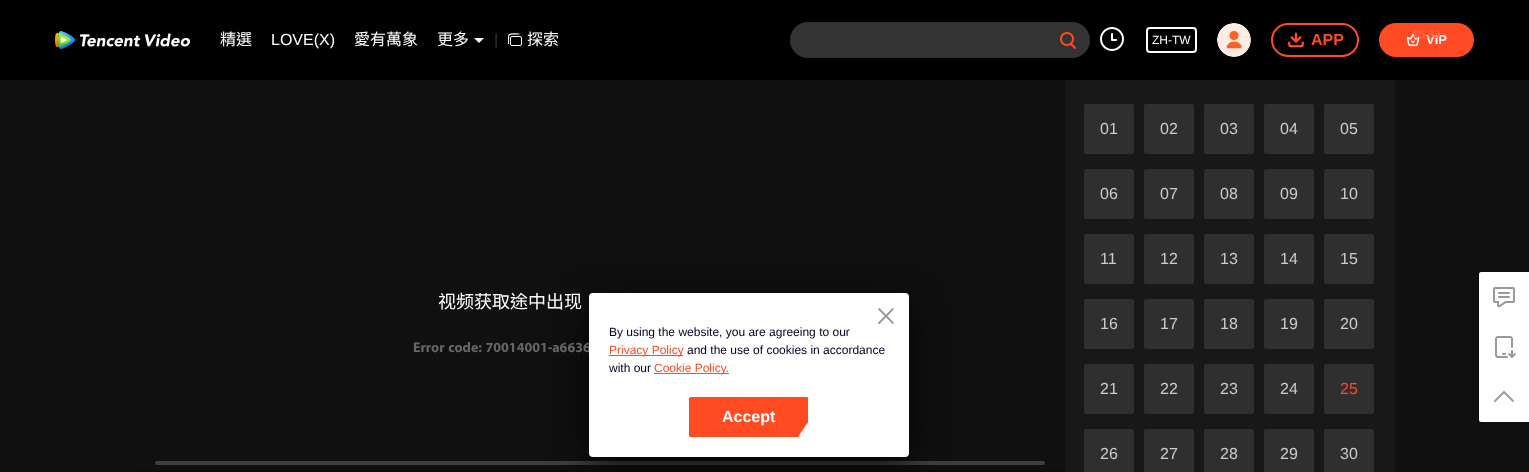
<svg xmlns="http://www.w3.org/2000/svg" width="1529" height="472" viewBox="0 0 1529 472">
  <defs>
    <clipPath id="clip1"><path d="M508 33h14v14H508z"/></clipPath>
    <linearGradient id="g1" gradientUnits="userSpaceOnUse" x1="600" y1="441" x2="600" y2="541"><stop offset="0" stop-color="#111"/><stop offset="1" stop-color="#050505"/></linearGradient>
  </defs>
  <rect width="100%" height="100%" fill="#101010"/>
  <path d="M0 0h1529v80H0z" fill="#000"/>
  <image x="55" y="31" width="135" height="18" href="img/1.png"/>
  <path d="M474 38H484L479 43Z" fill="#fff"/>
  <rect x="510.5" y="36.5" width="11" height="9" rx="1.5" fill="none" stroke="#fff"/>
  <g clip-path="url(#clip1)">
    <path d="M519 34C507.5 34 508.5 32 508.5 43.5" fill="none" stroke="#fff" stroke-width="1.2" stroke-linecap="round"/>
  </g>
  <rect x="790" y="22" width="300" height="36" rx="18" fill="#333"/>
  <image x="1060" y="32" width="16" height="17" href="img/2.png"/>
  <image x="1100" y="27" width="24" height="24" href="img/3.png"/>
  <rect x="1147" y="28" width="49" height="24" rx="3" fill="none" stroke="#fff" stroke-width="2"/>
  <image x="1217" y="23" width="34" height="34" href="img/4.png"/>
  <rect x="1272" y="24" width="86" height="32" rx="16" fill="none" stroke="#ff4a22" stroke-width="2"/>
  <image x="1288" y="32" width="16" height="16" href="img/5.png"/>
  <rect x="1379" y="23" width="95" height="34" rx="17" fill="#ff4a22"/>
  <image x="1406" y="34" width="14" height="13" href="img/6.png"/>
  <path d="M135 470h930v2H135z" fill="url(#g1)"/>
  <rect x="155" y="461" width="890" height="4" rx="2" fill="#3e3e3e"/>
  <path d="M1065 80h330v392H1065z" fill="#181818"/>
  <rect x="1084" y="104" width="50" height="50" rx="2" fill="#2f2f2f"/>
  <rect x="1144" y="104" width="50" height="50" rx="2" fill="#2f2f2f"/>
  <rect x="1204" y="104" width="50" height="50" rx="2" fill="#2f2f2f"/>
  <rect x="1264" y="104" width="50" height="50" rx="2" fill="#2f2f2f"/>
  <rect x="1324" y="104" width="50" height="50" rx="2" fill="#2f2f2f"/>
  <rect x="1084" y="169" width="50" height="50" rx="2" fill="#2f2f2f"/>
  <rect x="1144" y="169" width="50" height="50" rx="2" fill="#2f2f2f"/>
  <rect x="1204" y="169" width="50" height="50" rx="2" fill="#2f2f2f"/>
  <rect x="1264" y="169" width="50" height="50" rx="2" fill="#2f2f2f"/>
  <rect x="1324" y="169" width="50" height="50" rx="2" fill="#2f2f2f"/>
  <rect x="1084" y="234" width="50" height="50" rx="2" fill="#2f2f2f"/>
  <rect x="1144" y="234" width="50" height="50" rx="2" fill="#2f2f2f"/>
  <rect x="1204" y="234" width="50" height="50" rx="2" fill="#2f2f2f"/>
  <rect x="1264" y="234" width="50" height="50" rx="2" fill="#2f2f2f"/>
  <rect x="1324" y="234" width="50" height="50" rx="2" fill="#2f2f2f"/>
  <rect x="1084" y="299" width="50" height="50" rx="2" fill="#2f2f2f"/>
  <rect x="1144" y="299" width="50" height="50" rx="2" fill="#2f2f2f"/>
  <rect x="1204" y="299" width="50" height="50" rx="2" fill="#2f2f2f"/>
  <rect x="1264" y="299" width="50" height="50" rx="2" fill="#2f2f2f"/>
  <rect x="1324" y="299" width="50" height="50" rx="2" fill="#2f2f2f"/>
  <rect x="1084" y="364" width="50" height="50" rx="2" fill="#2f2f2f"/>
  <rect x="1144" y="364" width="50" height="50" rx="2" fill="#2f2f2f"/>
  <rect x="1204" y="364" width="50" height="50" rx="2" fill="#2f2f2f"/>
  <rect x="1264" y="364" width="50" height="50" rx="2" fill="#2f2f2f"/>
  <rect x="1324" y="364" width="50" height="50" rx="2" fill="#2f2f2f"/>
  <rect x="1084" y="429" width="50" height="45" rx="2" fill="#2f2f2f"/>
  <rect x="1144" y="429" width="50" height="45" rx="2" fill="#2f2f2f"/>
  <rect x="1204" y="429" width="50" height="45" rx="2" fill="#2f2f2f"/>
  <rect x="1264" y="429" width="50" height="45" rx="2" fill="#2f2f2f"/>
  <rect x="1324" y="429" width="50" height="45" rx="2" fill="#2f2f2f"/>
  <path d="M1481 272H1529V422H1481C1480 422 1479 421 1479 420V274C1479 273 1480 272 1481 272Z" fill="#fff"/>
  <image x="1493" y="287" width="22" height="21" href="img/7.png"/>
  <image x="1495" y="336" width="21" height="22" href="img/8.png"/>
  <image x="1494" y="391" width="20" height="11" href="img/9.png"/>
  <rect x="589" y="301" width="320" height="164" rx="4" fill="#000000cc" filter="blur(18px)"/>
  <text x="220" y="45" font-family="Noto Sans CJK TC" font-size="16" fill="#fff">精選</text>
  <text x="271" y="45" font-family="Liberation Sans" font-size="16" fill="#fff">LOVE(X)</text>
  <g font-family="Noto Sans CJK TC" font-size="16" fill="#fff">
    <text x="354" y="45">愛有萬象</text>
    <text x="437" y="45">更多</text>
  </g>
  <text x="494" y="45" font-family="Liberation Sans" font-size="16" fill="#333">|</text>
  <text x="527" y="45" font-family="Noto Sans CJK TC" font-size="16" fill="#fff">探索</text>
  <text x="1152" y="44" font-family="Liberation Sans" font-size="12" fill="#fff">ZH-TW</text>
  <text x="1311" y="45" font-family="Liberation Sans" font-size="16" font-weight="bold" fill="#ff4a22">APP</text>
  <text x="1426" y="44" font-family="Liberation Sans" font-size="13" font-weight="bold" fill="#fff">VIP</text>
  <text x="1413" y="38" font-family="Liberation Sans" font-size="11" font-weight="bold" fill="#ff6442">$5.99</text>
  <text x="438" y="308" font-family="Noto Sans CJK TC" font-size="18" fill="#fff">视频获取途中出现</text>
  <text x="413" y="352" font-family="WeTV" font-size="14" font-weight="bold" fill="#666">Error code: 70014001-a6636</text>
  <g font-family="Liberation Sans" font-size="16" fill="#ccc">
    <text x="1100" y="134">01</text>
    <text x="1160" y="134">02</text>
    <text x="1220" y="134">03</text>
    <text x="1280" y="134">04</text>
    <text x="1340" y="134">05</text>
    <text x="1100" y="199">06</text>
    <text x="1160" y="199">07</text>
    <text x="1220" y="199">08</text>
    <text x="1280" y="199">09</text>
    <text x="1340" y="199">10</text>
    <text x="1100" y="264">11</text>
    <text x="1160" y="264">12</text>
    <text x="1220" y="264">13</text>
    <text x="1280" y="264">14</text>
    <text x="1340" y="264">15</text>
    <text x="1100" y="329">16</text>
    <text x="1160" y="329">17</text>
    <text x="1220" y="329">18</text>
    <text x="1280" y="329">19</text>
    <text x="1340" y="329">20</text>
    <text x="1100" y="394">21</text>
    <text x="1160" y="394">22</text>
    <text x="1220" y="394">23</text>
    <text x="1280" y="394">24</text>
  </g>
  <text x="1340" y="394" font-family="Liberation Sans" font-size="16" fill="#ff4a22">25</text>
  <g font-family="Liberation Sans" font-size="16" fill="#ccc">
    <text x="1100" y="459">26</text>
    <text x="1160" y="459">27</text>
    <text x="1220" y="459">28</text>
    <text x="1280" y="459">29</text>
    <text x="1340" y="459">30</text>
  </g>
  <rect x="589" y="293" width="320" height="164" rx="4" fill="#fff"/>
  <image x="878" y="308" width="16" height="16" href="img/10.png"/>
  <text x="609" y="336" font-family="Liberation Sans" font-size="12" fill="#000028">By using the website, you are agreeing to our</text>
  <path d="M609 355h74v1H609z" fill="#ff4a22"/>
  <text x="609" y="354" font-family="Liberation Sans" font-size="12" fill="#ff4a22">Privacy Policy</text>
  <g font-family="Liberation Sans" font-size="12" fill="#000028">
    <text x="687" y="354">and the use of cookies in accordance</text>
    <text x="609" y="372">with our</text>
  </g>
  <path d="M654 373h75v1H654z" fill="#ff4a22"/>
  <text x="654" y="372" font-family="Liberation Sans" font-size="12" fill="#ff4a22">Cookie Policy.</text>
  <path d="M691 397C690 397 689 398 689 399V435C689 436 690 437 691 437H798L808 422V398L807 397Z" fill="#ff4a22"/>
  <path d="M691 397C690 397 689 398 689 399V435C689 436 690 437 691 437H798L800 435H691V399H807V424L808 422V398L807 397Z" fill="#ff4a22"/>
  <text x="722" y="422" font-family="Liberation Sans" font-size="16" font-weight="bold" fill="#fff">Accept</text>
</svg>
